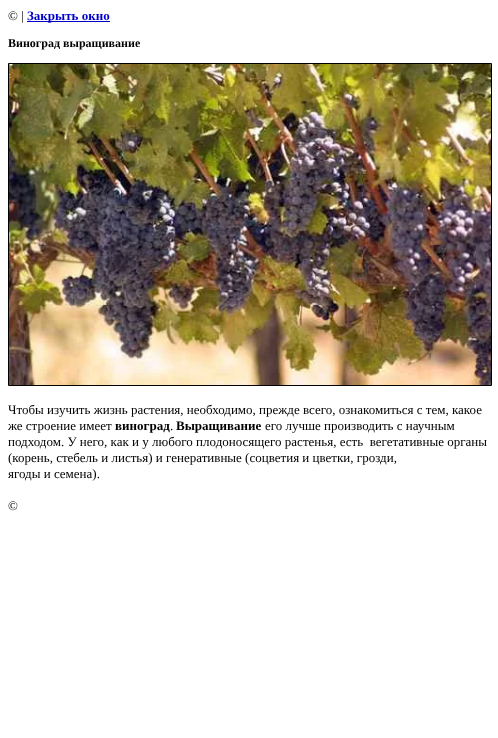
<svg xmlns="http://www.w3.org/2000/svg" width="498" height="738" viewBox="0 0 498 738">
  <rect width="100%" height="100%" fill="#fff"/>
  <path d="M27 21h83v1H27z" fill="#00c"/>
  <path d="M8.5 63.5h483v322H8.5z" fill="none" stroke="#000"/>
  <image x="9" y="64" width="482" height="321" href="img/1.png"/>
  <text x="8" y="20" font-family="Liberation Serif" font-size="13" fill="#000">© |</text>
  <text x="27" y="20" font-family="Liberation Serif" font-size="13" font-weight="bold" fill="#00c">Закрыть окно</text>
  <text x="8" y="47" font-family="Liberation Serif" font-size="12" font-weight="bold" fill="#000">Виноград выращивание</text>
  <g font-family="Liberation Serif" font-size="13" fill="#000">
    <text x="8" y="414">Чтобы изучить жизнь растения, необходимо, прежде всего, ознакомиться с тем, какое</text>
    <text x="8" y="430">же строение имеет</text>
  </g>
  <text x="115" y="430" font-family="Liberation Serif" font-size="13" font-weight="bold" fill="#000">виноград</text>
  <text x="170" y="430" font-family="Liberation Serif" font-size="13" fill="#000">.</text>
  <text x="176" y="430" font-family="Liberation Serif" font-size="13" font-weight="bold" fill="#000">Выращивание</text>
  <g font-family="Liberation Serif" font-size="13" fill="#000">
    <text x="265" y="430">его лучше производить с научным</text>
    <text x="8" y="446" xml:space="preserve">подходом. У него, как и у любого плодоносящего растенья, есть  вегетативные органы</text>
    <text x="8" y="462">(корень, стебель и листья) и генеративные (соцветия и цветки, грозди,</text>
    <text x="8" y="478">ягоды и семена).</text>
    <text x="8" y="510">©</text>
  </g>
</svg>
